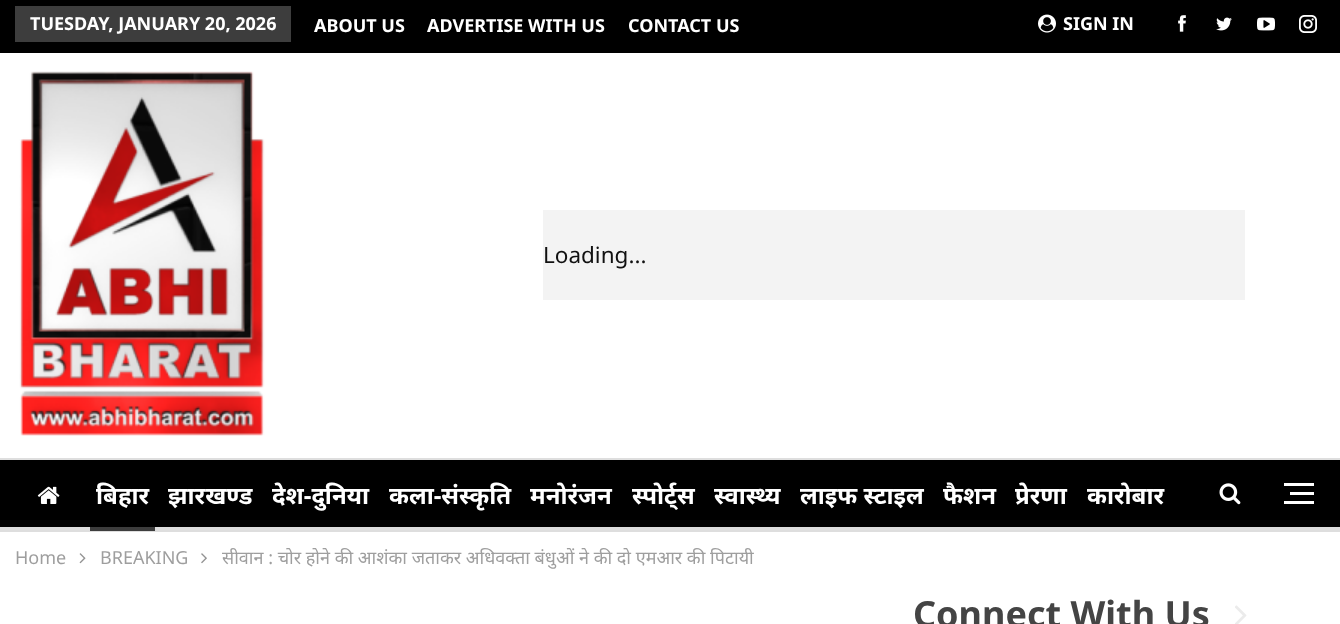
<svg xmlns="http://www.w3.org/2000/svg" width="1340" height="624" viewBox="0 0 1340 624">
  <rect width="100%" height="100%" fill="#fff"/>
  <path d="M0 0h1340v53H0z" fill="#000"/>
  <path d="M15 6h276v36H15z" fill="#3d3d3d"/>
  <image x="1038" y="14" width="18" height="19" href="img/1.png"/>
  <image x="1178" y="15" width="8" height="17" href="img/2.png"/>
  <image x="1216" y="17" width="16" height="14" href="img/3.png"/>
  <image x="1257" y="17" width="18" height="14" href="img/4.png"/>
  <image x="1299" y="15" width="18" height="18" href="img/5.png"/>
  <image x="19" y="71" width="246" height="365" href="img/6.png"/>
  <path d="M543 210h702v90H543z" fill="#f3f3f3"/>
  <path d="M0 460h1340v67H0z" fill="#000"/>
  <path d="M0 458h1340v2H0z" fill="#dedede"/>
  <path d="M0 527h1340v5H0z" fill="#dedede"/>
  <image x="37" y="486" width="23" height="18" href="img/7.png"/>
  <path d="M90 527h65v4H90z" fill="#3d3d3d"/>
  <image x="1219" y="483" width="22" height="22" href="img/8.png"/>
  <path d="M1290 492h24v3H1290z" fill="#fff"/>
  <path d="M1284 483h30v3H1284z" fill="#fff"/>
  <path d="M1284 501h30v3H1284z" fill="#fff"/>
  <image x="79" y="553" width="7" height="11" href="img/9.png"/>
  <image x="201" y="553" width="6" height="11" href="img/10.png"/>
  <image x="1235" y="605" width="12" height="19" href="img/11.png"/>
  <g font-family="Noto Sans" font-size="18" font-weight="bold" fill="#fff">
    <text x="30" y="30">TUESDAY, JANUARY 20, 2026</text>
    <text x="314" y="32">ABOUT US</text>
    <text x="427" y="32">ADVERTISE WITH US</text>
    <text x="628" y="32">CONTACT US</text>
    <text x="1063" y="30">SIGN IN</text>
  </g>
  <text x="543" y="263" font-family="Noto Sans" font-size="22.5" fill="#111">Loading...</text>
  <g font-family="Noto Sans" font-size="24" font-weight="bold" fill="#fff">
    <text x="96" y="504">बिहार</text>
    <text x="168" y="504">झारखण्ड</text>
    <text x="272" y="504">देश-दुनिया</text>
    <text x="389" y="504">कला-संस्कृति</text>
    <text x="530" y="504">मनोरंजन</text>
    <text x="632" y="504">स्पोर्ट्स</text>
    <text x="714" y="504">स्वास्थ्य</text>
    <text x="800" y="504">लाइफ स्टाइल</text>
    <text x="943" y="504">फैशन</text>
    <text x="1015" y="504">प्रेरणा</text>
    <text x="1087" y="504">कारोबार</text>
  </g>
  <g font-family="Noto Sans" font-size="18" fill="#9e9e9e">
    <text x="15" y="564">Home</text>
    <text x="100" y="564">BREAKING</text>
    <text x="222" y="564">सीवान : चोर होने की आशंका जताकर अधिवक्ता बंधुओं ने की दो एमआर की पिटायी</text>
  </g>
  <text x="913" y="627" font-family="Noto Sans" font-size="36" font-weight="bold" fill="#444">Connect With Us</text>
</svg>
